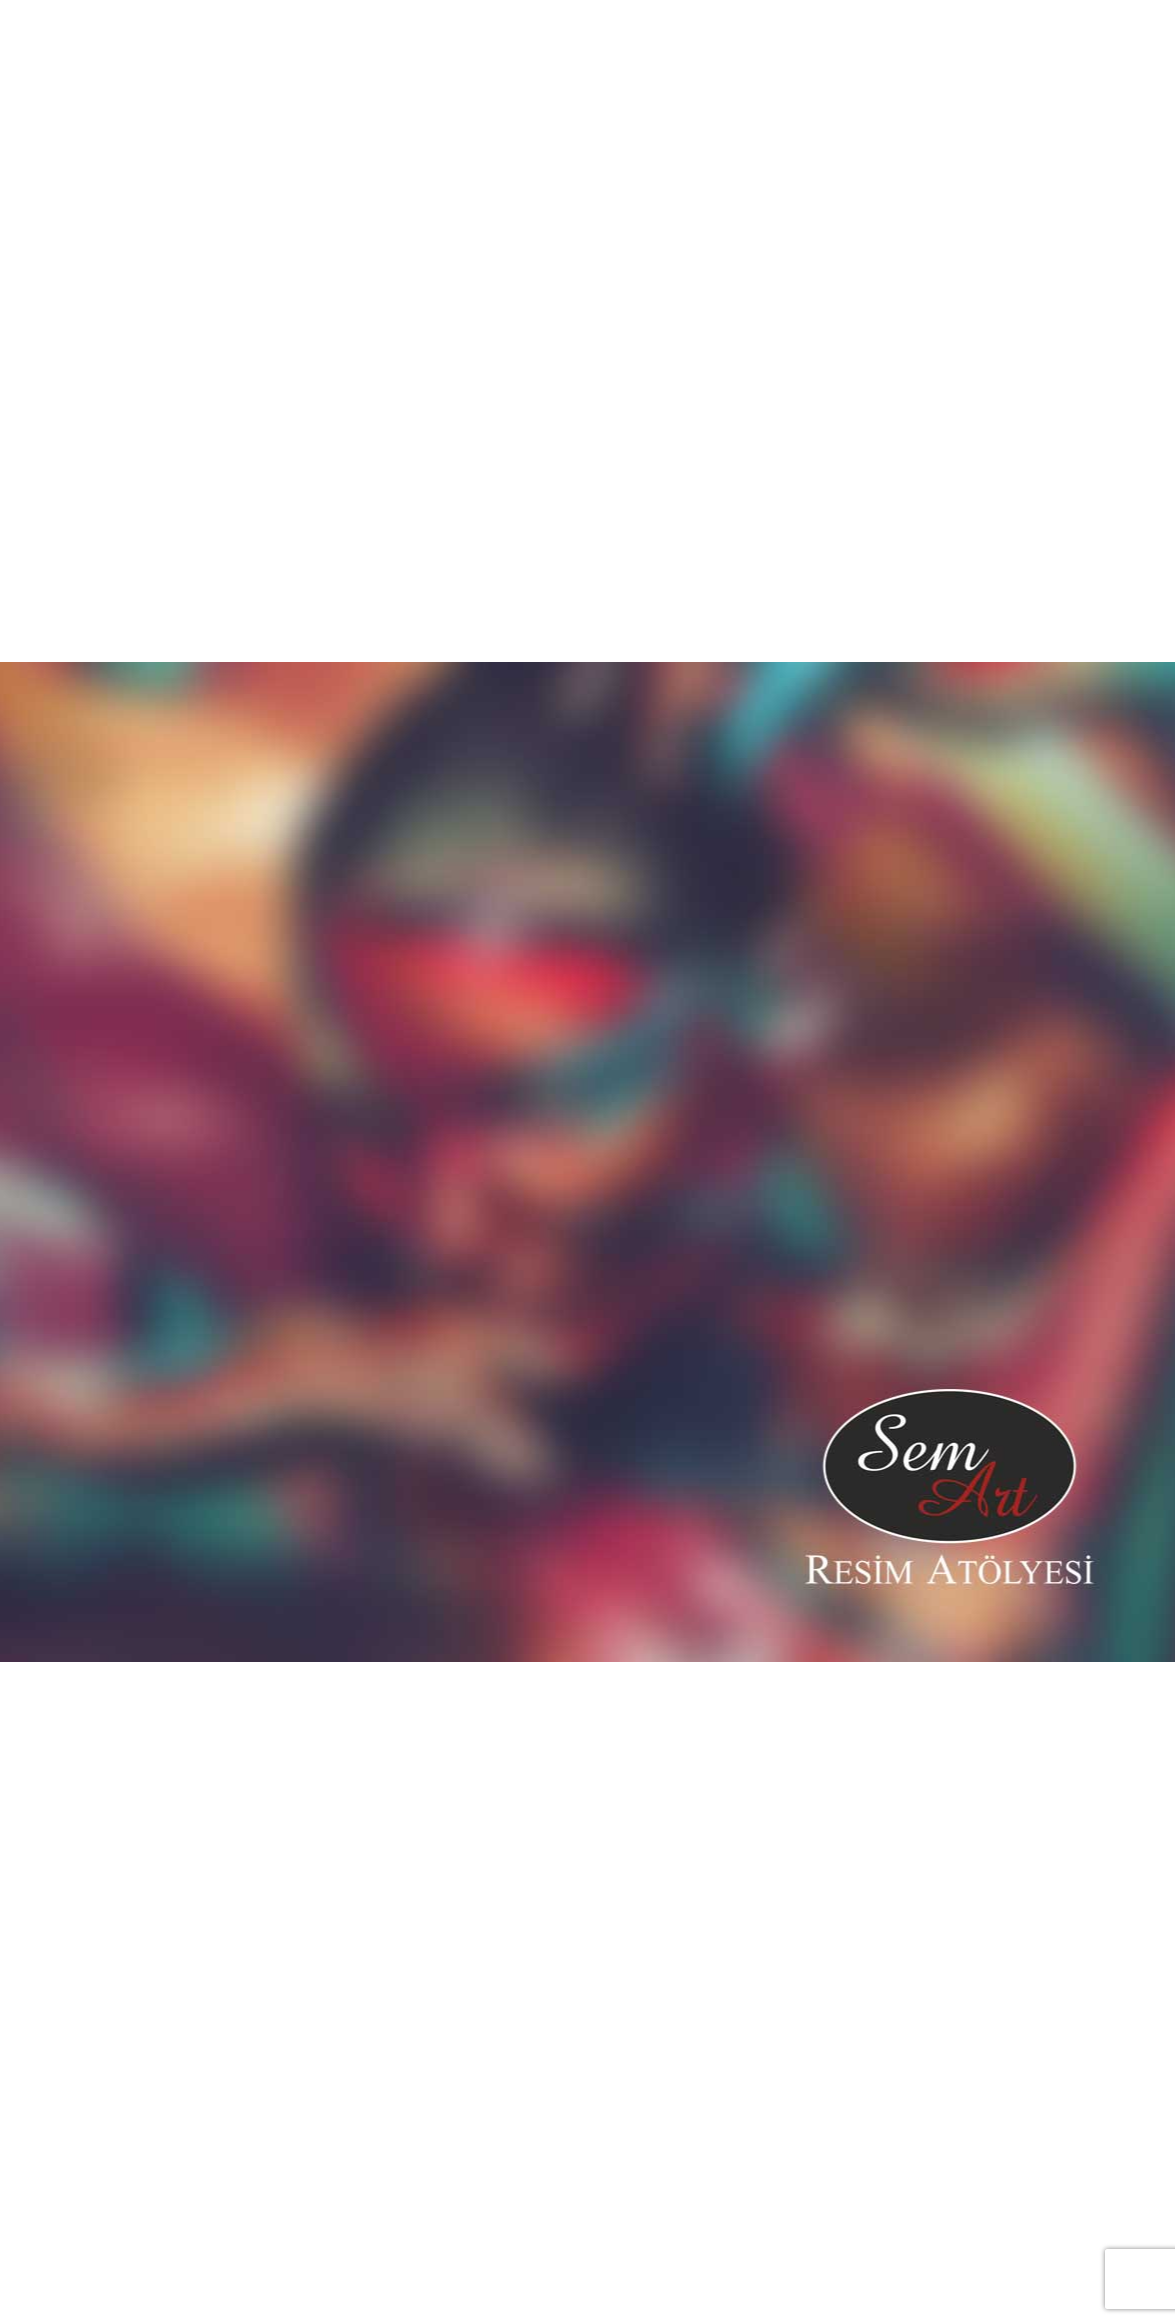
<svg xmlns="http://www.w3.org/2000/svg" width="1175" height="2323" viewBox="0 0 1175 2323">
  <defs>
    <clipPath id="clip1"><path d="M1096 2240H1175V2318H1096ZM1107 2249H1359C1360 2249 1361 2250 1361 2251V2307C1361 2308 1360 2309 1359 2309H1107C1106 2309 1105 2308 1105 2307V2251C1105 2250 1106 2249 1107 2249Z" clip-rule="evenodd"/></clipPath>
  </defs>
  <rect width="100%" height="100%" fill="#fff"/>
  <image x="0" y="662" width="1175" height="1000" href="img/1.png"/>
  <g clip-path="url(#clip1)">
    <rect x="1105" y="2249" width="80" height="60" rx="2" fill="#808080" filter="blur(2.5px)"/>
  </g>
</svg>
